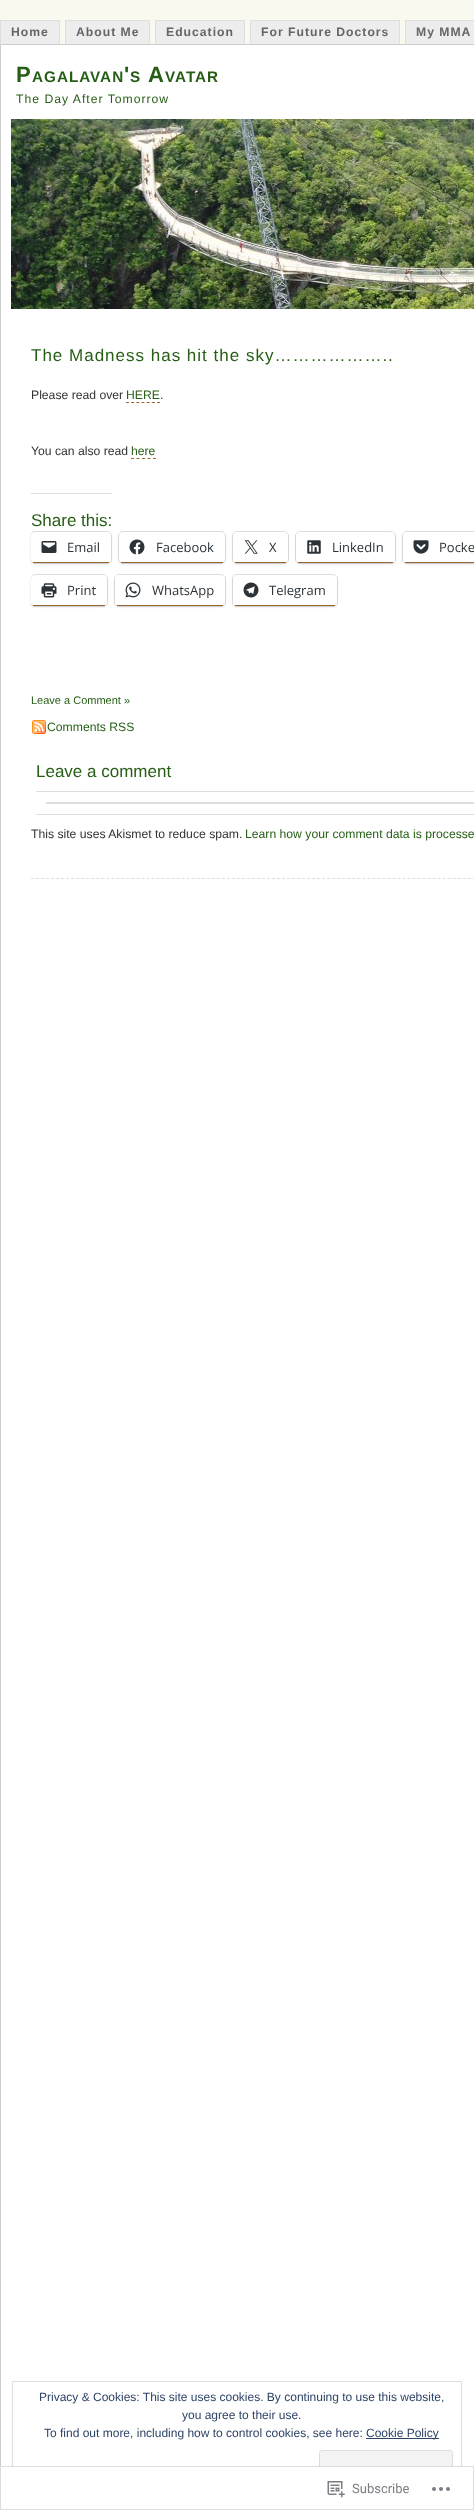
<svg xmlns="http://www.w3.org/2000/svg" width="474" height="2510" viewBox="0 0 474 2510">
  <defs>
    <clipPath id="clip1"><path d="M31 378h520v302H31z"/></clipPath>
  </defs>
  <rect width="100%" height="100%" fill="#f9f9f0"/>
  <path d="M1 21h58v23H1z" fill="#ededed"/>
  <path d="M0 20h60v1H0z" fill="#dedede"/>
  <path d="M59 20h1v24H59z" fill="#dedede"/>
  <path d="M0 20h1v24H0z" fill="#dedede"/>
  <path d="M66 21h83v23H66z" fill="#ededed"/>
  <path d="M65 20h85v1H65z" fill="#dedede"/>
  <path d="M149 20h1v24H149z" fill="#dedede"/>
  <path d="M65 20h1v24H65z" fill="#dedede"/>
  <path d="M156 21h88v23H156z" fill="#ededed"/>
  <path d="M155 20h90v1H155z" fill="#dedede"/>
  <path d="M244 20h1v24H244z" fill="#dedede"/>
  <path d="M155 20h1v24H155z" fill="#dedede"/>
  <path d="M251 21h148v23H251z" fill="#ededed"/>
  <path d="M250 20h150v1H250z" fill="#dedede"/>
  <path d="M399 20h1v24H399z" fill="#dedede"/>
  <path d="M250 20h1v24H250z" fill="#dedede"/>
  <path d="M406 21h68v23H406z" fill="#ededed"/>
  <path d="M405 20h69v1H405z" fill="#dedede"/>
  <path d="M405 20h1v24H405z" fill="#dedede"/>
  <path d="M0.5 44.5h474v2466H0.5z" fill="#fff" stroke="#ccc"/>
  <image x="11" y="119" width="463" height="190" href="img/1.png"/>
  <path d="M31 878.5H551" fill="none" stroke="#ddd" stroke-dasharray="3 2.02"/>
  <path d="M126 402.5H160" fill="none" stroke="#963" stroke-dasharray="3 2.17"/>
  <path d="M131 458.5H156" fill="none" stroke="#963" stroke-dasharray="3 2.5"/>
  <path d="M31 493h81v1H31z" fill="#dcdcde"/>
  <g clip-path="url(#clip1)">
    <rect x="30.5" y="531.5" width="81" height="32" rx="4.5" fill="none" stroke="#e0e0e0"/>
  </g>
  <rect x="31" y="533" width="80" height="31" rx="4" fill="#0000001f" filter="blur(1px)"/>
  <rect x="31" y="532" width="80" height="31" rx="4" fill="#fff"/>
  <path d="M33 562h76v1H33z" fill="#963"/>
  <image x="41" y="541" width="16" height="12" href="img/2.png"/>
  <rect x="118.5" y="531.5" width="107" height="32" rx="4.5" fill="none" stroke="#e0e0e0"/>
  <rect x="119" y="533" width="106" height="31" rx="4" fill="#0000001f" filter="blur(1px)"/>
  <rect x="119" y="532" width="106" height="31" rx="4" fill="#fff"/>
  <path d="M121 562h102v1H121z" fill="#963"/>
  <image x="129" y="539" width="16" height="16" href="img/3.png"/>
  <rect x="232.5" y="531.5" width="56" height="32" rx="4.5" fill="none" stroke="#e0e0e0"/>
  <rect x="233" y="533" width="55" height="31" rx="4" fill="#0000001f" filter="blur(1px)"/>
  <rect x="233" y="532" width="55" height="31" rx="4" fill="#fff"/>
  <path d="M235 562h51v1H235z" fill="#963"/>
  <image x="244" y="540" width="14" height="14" href="img/4.png"/>
  <rect x="295.5" y="531.5" width="100" height="32" rx="4.5" fill="none" stroke="#e0e0e0"/>
  <rect x="296" y="533" width="99" height="31" rx="4" fill="#0000001f" filter="blur(1px)"/>
  <rect x="296" y="532" width="99" height="31" rx="4" fill="#fff"/>
  <path d="M298 562h95v1H298z" fill="#963"/>
  <image x="307" y="540" width="14" height="14" href="img/5.png"/>
  <rect x="402.5" y="531.5" width="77" height="32" rx="4.5" fill="none" stroke="#e0e0e0"/>
  <rect x="403" y="533" width="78" height="31" rx="4" fill="#0000001f" filter="blur(1px)"/>
  <rect x="403" y="532" width="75" height="31" rx="4" fill="#fff"/>
  <path d="M405 562h69v1H405z" fill="#963"/>
  <image x="413" y="540" width="16" height="14" href="img/6.png"/>
  <g clip-path="url(#clip1)">
    <rect x="30.5" y="574.5" width="77" height="32" rx="4.5" fill="none" stroke="#e0e0e0"/>
  </g>
  <rect x="31" y="576" width="76" height="31" rx="4" fill="#0000001f" filter="blur(1px)"/>
  <rect x="31" y="575" width="76" height="31" rx="4" fill="#fff"/>
  <path d="M33 605h72v1H33z" fill="#963"/>
  <image x="41" y="583" width="16" height="15" href="img/7.png"/>
  <rect x="114.5" y="574.5" width="111" height="32" rx="4.5" fill="none" stroke="#e0e0e0"/>
  <rect x="115" y="576" width="110" height="31" rx="4" fill="#0000001f" filter="blur(1px)"/>
  <rect x="115" y="575" width="110" height="31" rx="4" fill="#fff"/>
  <path d="M117 605h106v1H117z" fill="#963"/>
  <image x="125" y="582" width="16" height="16" href="img/8.png"/>
  <rect x="232.5" y="574.5" width="105" height="32" rx="4.5" fill="none" stroke="#e0e0e0"/>
  <rect x="233" y="576" width="104" height="31" rx="4" fill="#0000001f" filter="blur(1px)"/>
  <rect x="233" y="575" width="104" height="31" rx="4" fill="#fff"/>
  <path d="M235 605h100v1H235z" fill="#963"/>
  <image x="243" y="582" width="16" height="16" href="img/9.png"/>
  <image x="32" y="720" width="14" height="14" href="img/10.png"/>
  <path d="M36 791h438v1H36z" fill="#ddd"/>
  <path d="M36 814h438v1H36z" fill="#ddd"/>
  <path d="M46 802h428v2H46z" fill="#dcdcde"/>
  <path d="M12.5 2381.5h449v116H12.5z" fill="none" stroke="#dedede"/>
  <path d="M366 2438h73v1H366z" fill="#2e4467"/>
  <rect x="319.5" y="2450.5" width="133" height="38" rx="2.5" fill="#f3f3f3" stroke="#dedede"/>
  <path d="M0 2466h462v44H0z" fill="#fffffffa"/>
  <path d="M0.5 2466.5h473v43H0.5z" fill="none" stroke="#dcdcdefa"/>
  <image x="327" y="2481" width="18" height="17" href="img/11.png"/>
  <image x="432" y="2487" width="18" height="4" href="img/12.png"/>
  <g font-family="Liberation Sans" font-size="12.2" font-weight="bold" letter-spacing="1" fill="#666">
    <text x="11" y="36">Home</text>
    <text x="76" y="36">About Me</text>
    <text x="166" y="36">Education</text>
    <text x="261" y="36">For Future Doctors</text>
    <text x="416" y="36">My MMA</text>
  </g>
  <text x="16" y="82" font-family="Liberation Sans" font-size="22" font-weight="bold" letter-spacing="1" fill="#265e15">P</text>
  <text x="32" y="82" font-family="Liberation Sans" font-size="15.25" font-weight="bold" letter-spacing="1" fill="#265e15">AGALAVAN</text>
  <text x="124" y="82" font-family="Liberation Sans" font-size="22" font-weight="bold" letter-spacing="1" fill="#265e15">'</text>
  <text x="130" y="82" font-family="Liberation Sans" font-size="15.25" font-weight="bold" letter-spacing="1" fill="#265e15">S</text>
  <text x="148" y="82" font-family="Liberation Sans" font-size="22" font-weight="bold" letter-spacing="1" fill="#265e15">A</text>
  <text x="165" y="82" font-family="Liberation Sans" font-size="15.25" font-weight="bold" letter-spacing="1" fill="#265e15">VATAR</text>
  <text x="16" y="103" font-family="Liberation Sans" font-size="12.2" letter-spacing="1" fill="#265e15">The Day After Tomorrow</text>
  <text x="31" y="361" font-family="Liberation Sans" font-size="17" letter-spacing="1" fill="#265e15">The Madness has hit the sky………………..</text>
  <text x="31" y="399" font-family="Liberation Sans" font-size="12.2" fill="#333">Please read over</text>
  <text x="126" y="399" font-family="Liberation Sans" font-size="12.2" fill="#265e15">HERE</text>
  <g font-family="Liberation Sans" font-size="12.2" fill="#333">
    <text x="160" y="399">.</text>
    <text x="31" y="455">You can also read</text>
  </g>
  <text x="131" y="455" font-family="Liberation Sans" font-size="12.2" fill="#265e15">here</text>
  <text x="31" y="526" font-family="Liberation Sans" font-size="17" fill="#265e15">Share this:</text>
  <g font-family="Open Sans" font-size="13" fill="#2c3338">
    <text x="67" y="552">Email</text>
    <text x="156" y="552">Facebook</text>
    <text x="269" y="552">X</text>
    <text x="332" y="552">LinkedIn</text>
    <text x="439" y="552">Pocke</text>
    <text x="67" y="595">Print</text>
    <text x="152" y="595">WhatsApp</text>
    <text x="269" y="595">Telegram</text>
  </g>
  <text x="31" y="704" font-family="Liberation Sans" font-size="11" fill="#265e15">Leave a Comment »</text>
  <text x="47" y="731" font-family="Liberation Sans" font-size="12.2" fill="#265e15">Comments RSS</text>
  <text x="36" y="777" font-family="Liberation Sans" font-size="17" fill="#265e15">Leave a comment</text>
  <text x="31" y="838" font-family="Liberation Sans" font-size="12.2" fill="#333">This site uses Akismet to reduce spam.</text>
  <text x="245" y="838" font-family="Liberation Sans" font-size="12.2" fill="#265e15">Learn how your comment data is processe</text>
  <g font-family="Liberation Sans" font-size="12" fill="#2e4467">
    <text x="39" y="2401">Privacy &amp; Cookies: This site uses cookies. By continuing to use this website,</text>
    <text x="182" y="2419">you agree to their use.</text>
    <text x="44" y="2437">To find out more, including how to control cookies, see here:</text>
    <text x="366" y="2437">Cookie Policy</text>
  </g>
  <text x="352" y="2493" font-family="Roboto" font-size="13" fill="#7b7f84">Subscribe</text>
</svg>
